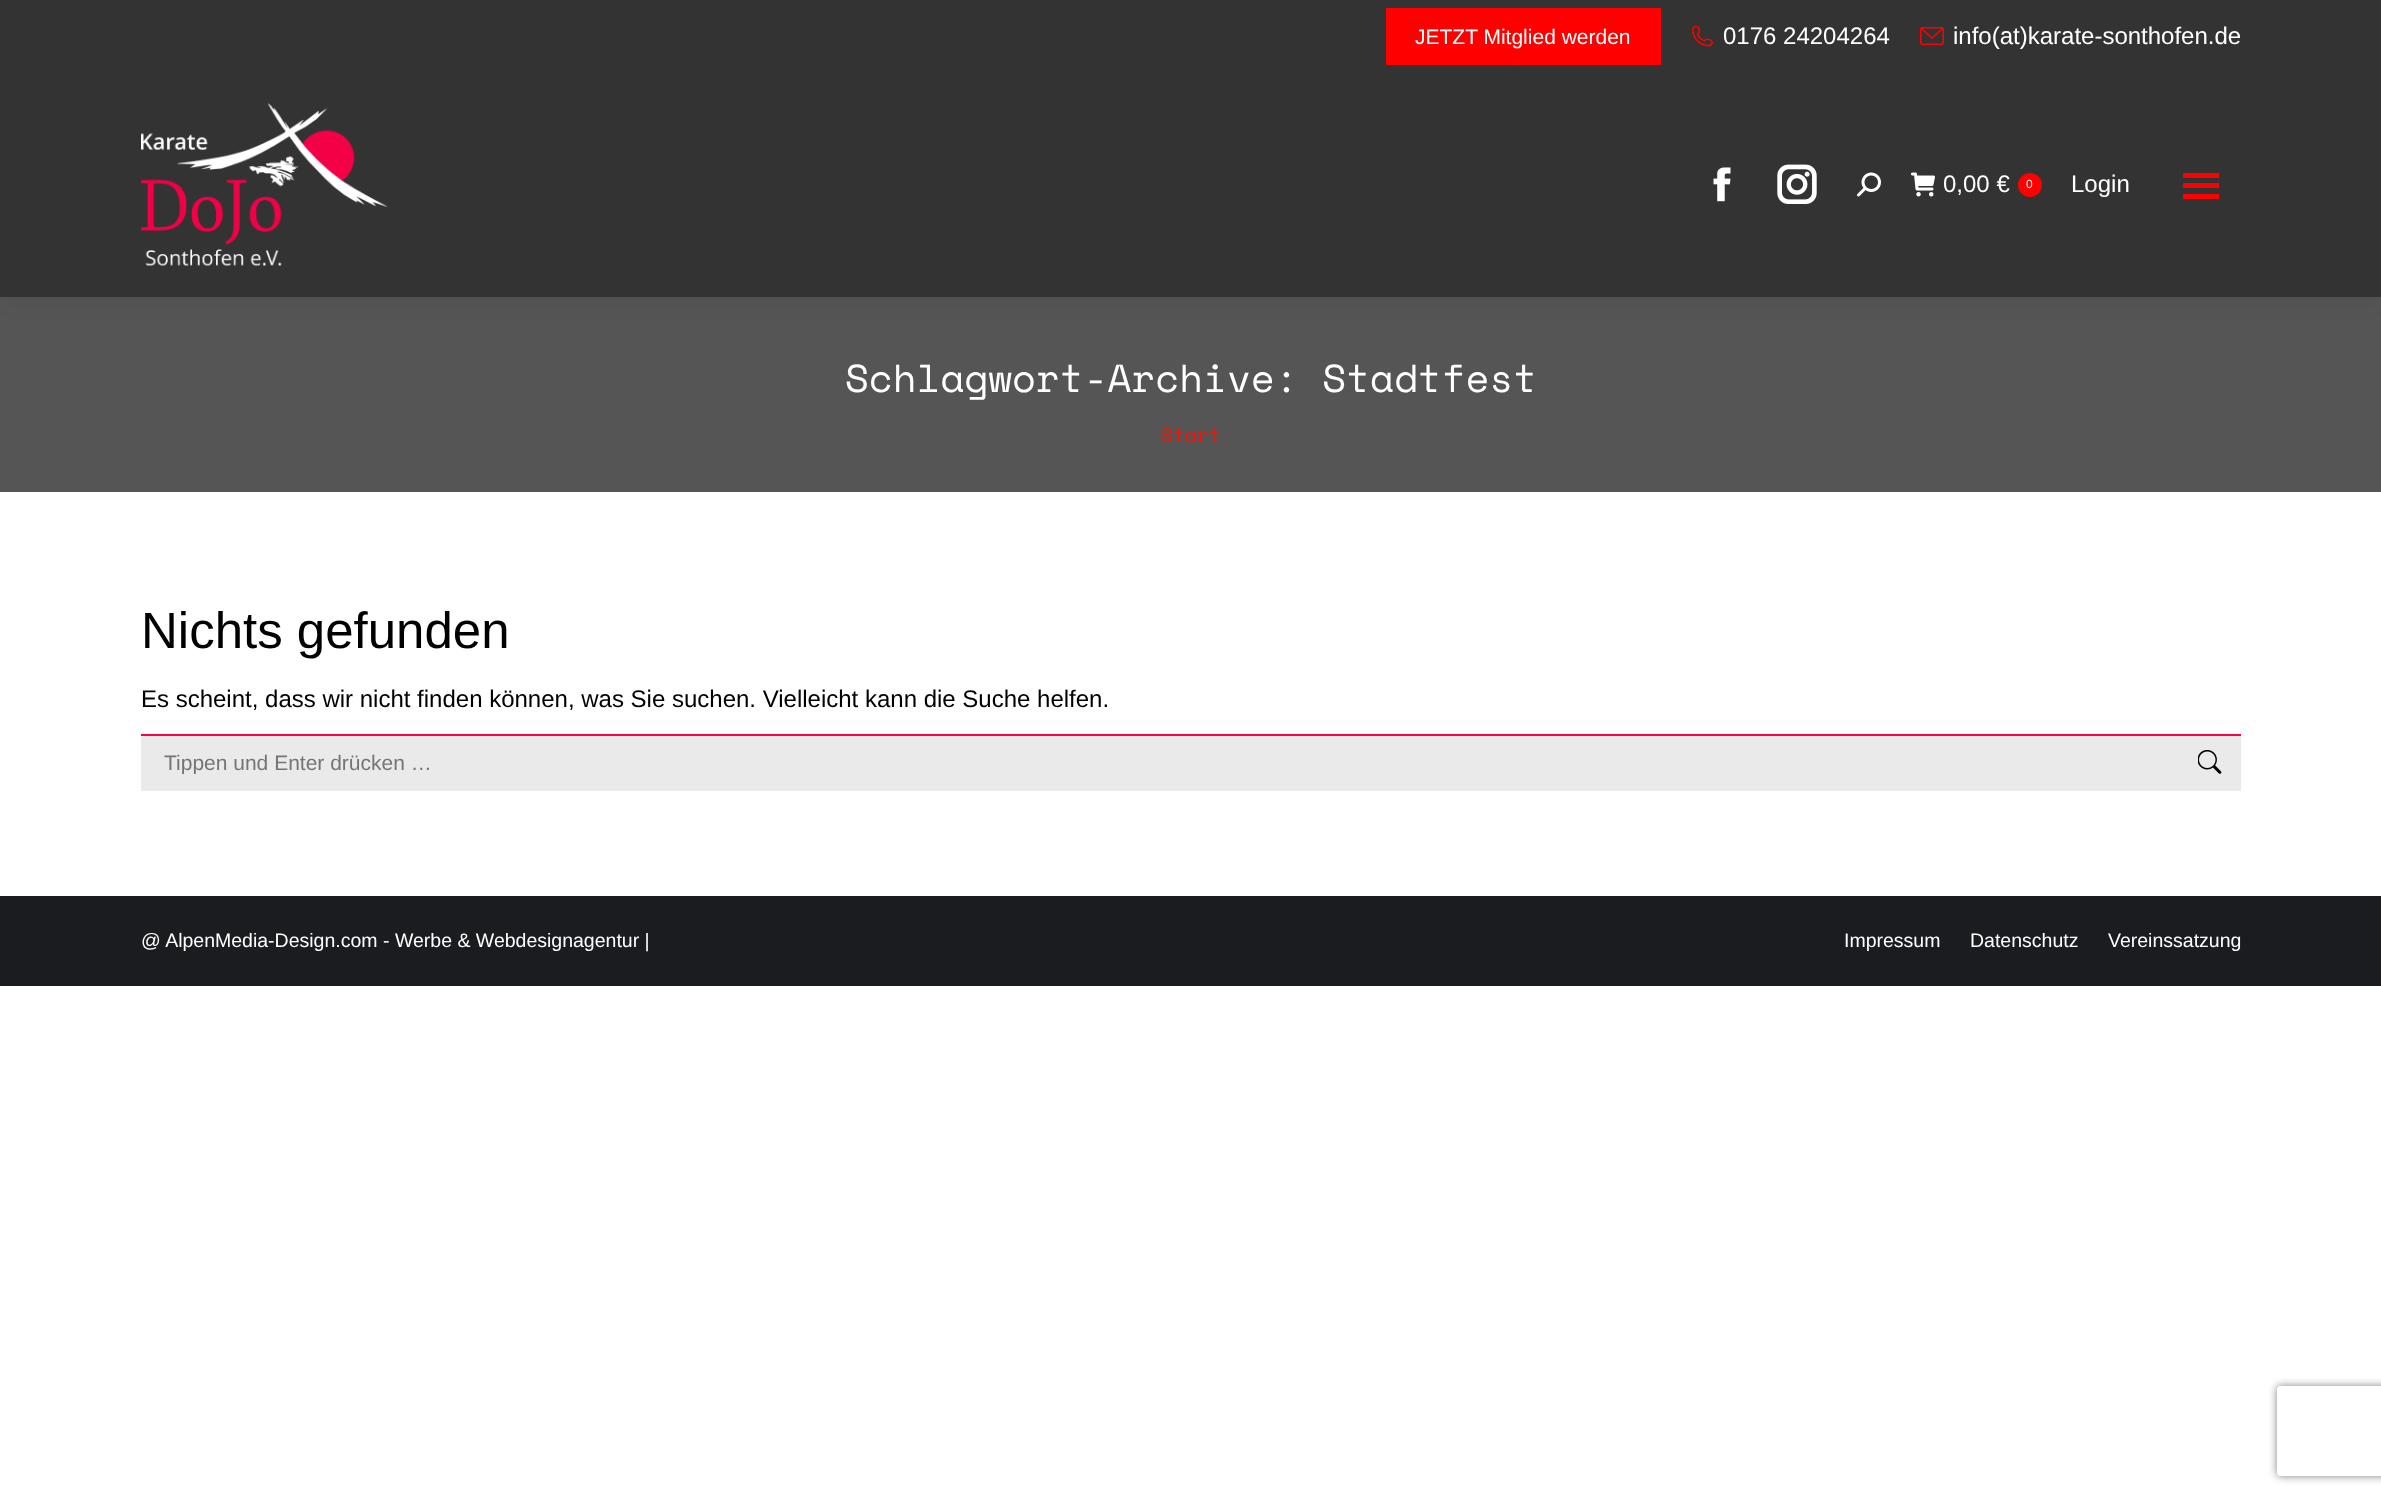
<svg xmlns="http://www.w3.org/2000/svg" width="2381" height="1497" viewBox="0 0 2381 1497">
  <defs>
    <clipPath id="clip1"><path d="M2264 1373H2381V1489H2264ZM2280 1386H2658C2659.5 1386 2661 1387.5 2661 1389V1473C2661 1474.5 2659.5 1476 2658 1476H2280C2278.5 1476 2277 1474.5 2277 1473V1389C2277 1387.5 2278.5 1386 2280 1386Z" clip-rule="evenodd"/></clipPath>
    <clipPath id="clip2"><path d="M164 750h2032v24H164z"/></clipPath>
  </defs>
  <rect width="100%" height="100%" fill="#fff"/>
  <path d="M0 297h2381v195H0z" fill="#555"/>
  <path d="M-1 -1h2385v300H-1z" fill="#00000012" filter="blur(11px)"/>
  <path d="M0 0h2381v297H0z" fill="#333"/>
  <path d="M1386 8h275v57H1386z" fill="#f00"/>
  <image x="1692" y="25" width="21" height="22" href="img/1.png"/>
  <image x="1920" y="27" width="24" height="18" href="img/2.png"/>
  <image x="141" y="103" width="246" height="163" href="img/3.png"/>
  <image x="1713" y="167" width="18" height="35" href="img/4.png"/>
  <image x="1777" y="164" width="40" height="40" href="img/5.png"/>
  <image x="1857" y="172" width="24" height="25" href="img/6.png"/>
  <image x="1911" y="172" width="24" height="25" href="img/7.png"/>
  <circle cx="2030" cy="185" r="12" fill="#f00"/>
  <path d="M2183 173h36v5H2183z" fill="#f00"/>
  <path d="M2183 183h36v5H2183z" fill="#f00"/>
  <path d="M2183 194h36v5H2183z" fill="#f00"/>
  <path d="M141 736h2100v55H141z" fill="#eaeaea"/>
  <path d="M141 734h2100v2H141z" fill="#f04"/>
  <image x="2198" y="750" width="24" height="24" href="img/8.png"/>
  <path d="M0 896h2381v90H0z" fill="#1a1c20"/>
  <g clip-path="url(#clip1)">
    <rect x="2277" y="1386" width="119" height="90" rx="3" fill="#808080" filter="blur(4px)"/>
  </g>
  <text x="1415" y="44" font-family="Liberation Sans" font-size="21" fill="#fff">JETZT Mitglied werden</text>
  <g font-family="Liberation Sans" font-size="24" fill="#fff">
    <text x="1723" y="44">0176 24204264</text>
    <text x="1953" y="44">info(at)karate-sonthofen.de</text>
    <text x="1943" y="192">0,00 €</text>
  </g>
  <text x="2026" y="188" font-family="Liberation Sans" font-size="12" fill="#fff">0</text>
  <text x="2071" y="192" font-family="Liberation Sans" font-size="24" fill="#fff">Login</text>
  <text x="845" y="392" font-family="Space Mono" font-size="39" fill="#fff">Schlagwort-Archive: Stadtfest</text>
  <text x="1161" y="442" font-family="Space Mono" font-size="19.5" fill="#fc1000">Start</text>
  <text x="141" y="648" font-family="Liberation Sans" font-size="51" fill="#000">Nichts gefunden</text>
  <text x="141" y="707" font-family="Liberation Sans" font-size="24" fill="#000">Es scheint, dass wir nicht finden können, was Sie suchen. Vielleicht kann die Suche helfen.</text>
  <g clip-path="url(#clip2)">
    <text x="164" y="770" font-family="Liberation Sans" font-size="21" fill="#757575">Tippen und Enter drücken …</text>
  </g>
  <g font-family="Liberation Sans" font-size="19.5" fill="#fff">
    <text x="141" y="947">@ AlpenMedia-Design.com - Werbe &amp; Webdesignagentur |</text>
    <text x="1844" y="947">Impressum</text>
    <text x="1970" y="947">Datenschutz</text>
    <text x="2108" y="947">Vereinssatzung</text>
  </g>
</svg>
